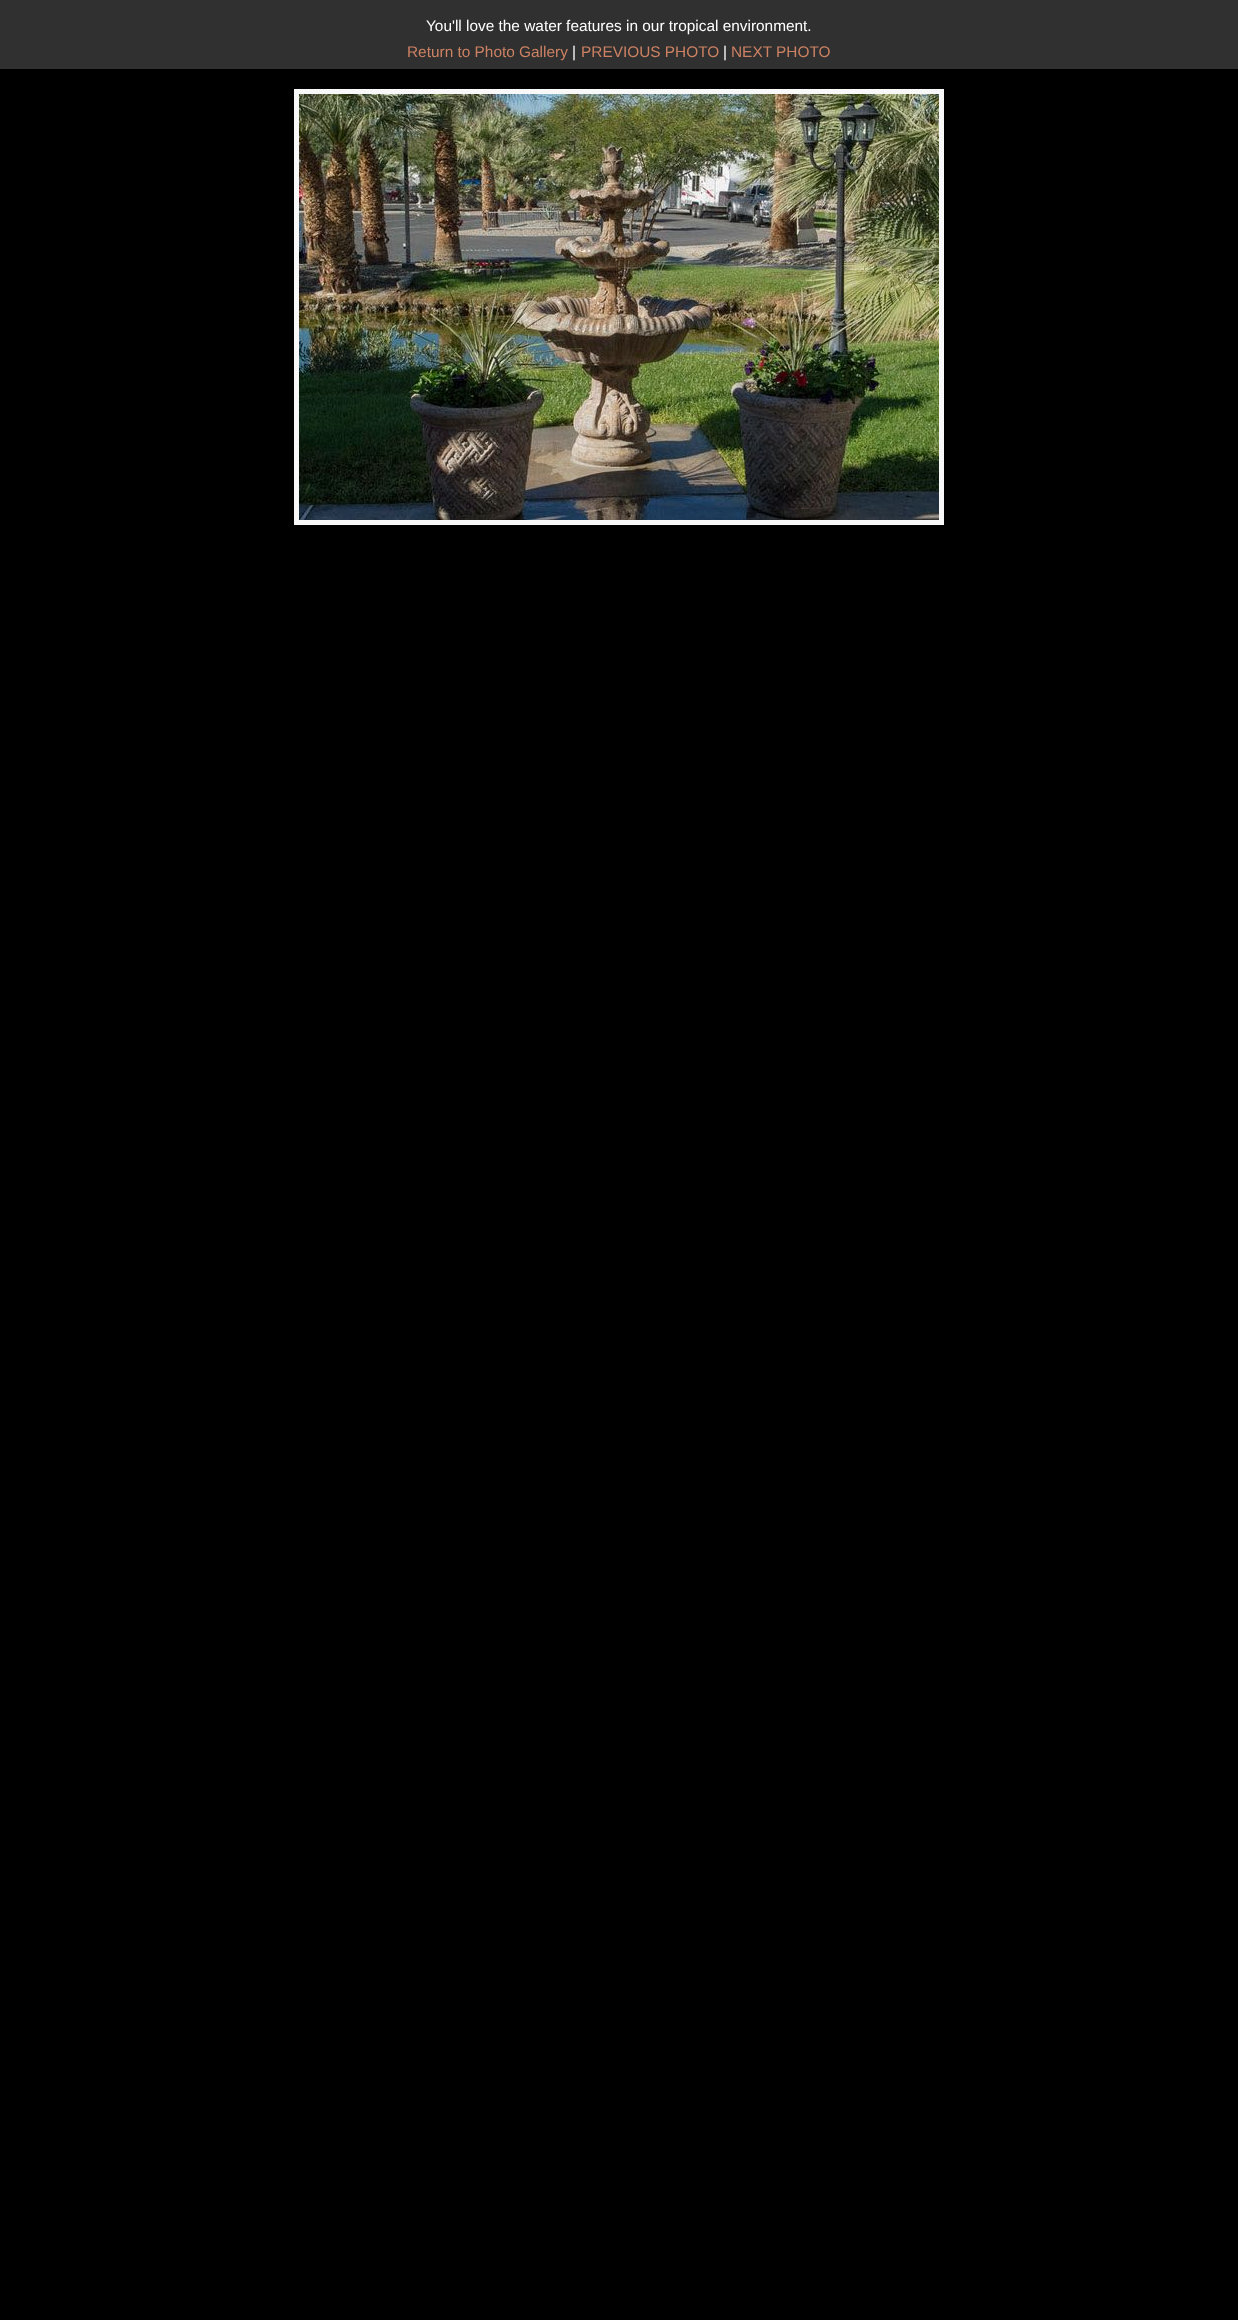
<svg xmlns="http://www.w3.org/2000/svg" width="1238" height="2320" viewBox="0 0 1238 2320">
  <rect width="100%" height="100%" fill="#000"/>
  <path d="M0 0h1238v69H0z" fill="#303030"/>
  <path d="M294 89h650v436H294z" fill="#f8f8f8"/>
  <image x="299" y="94" width="640" height="426" href="img/1.png"/>
  <text x="426" y="31" font-family="Liberation Sans" font-size="15.4" fill="#fff">You'll love the water features in our tropical environment.</text>
  <text x="407" y="57" font-family="Liberation Sans" font-size="15.4" fill="#cd8263">Return to Photo Gallery</text>
  <text x="572" y="57" font-family="Liberation Sans" font-size="15.4" fill="#fff">|</text>
  <text x="581" y="57" font-family="Liberation Sans" font-size="15.4" fill="#cd8263">PREVIOUS PHOTO</text>
  <text x="723" y="57" font-family="Liberation Sans" font-size="15.4" fill="#fff">|</text>
  <text x="731" y="57" font-family="Liberation Sans" font-size="15.4" fill="#cd8263">NEXT PHOTO</text>
</svg>
